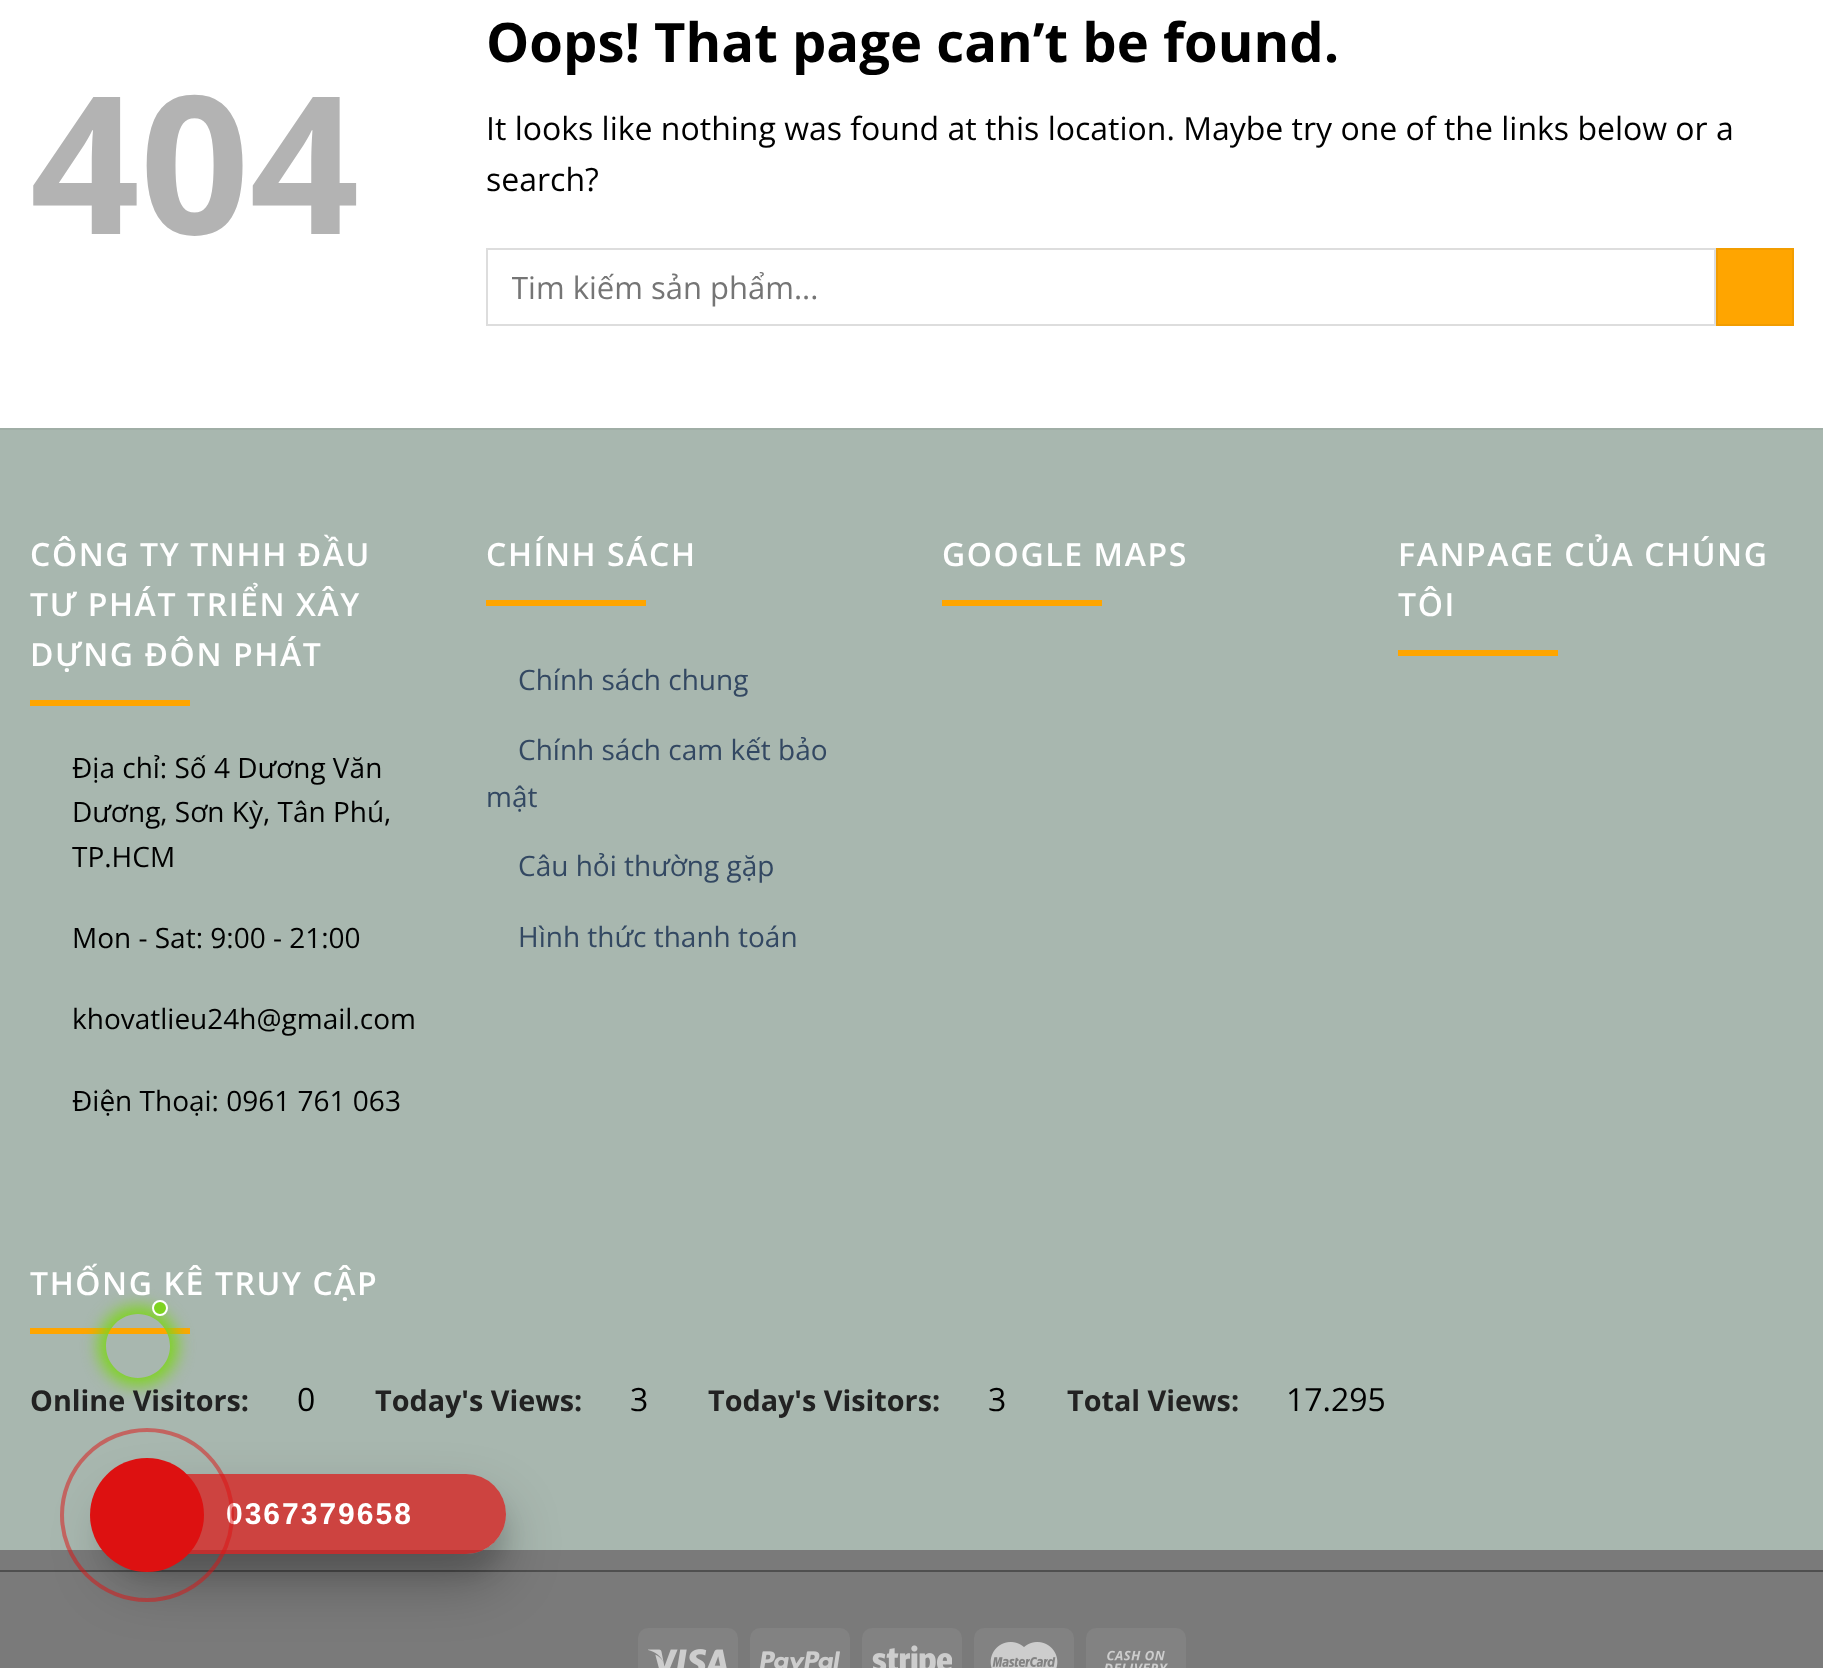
<svg xmlns="http://www.w3.org/2000/svg" width="1823" height="1668" viewBox="0 0 1823 1668">
  <defs>
    <clipPath id="clip1"><path d="M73 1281H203V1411H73ZM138 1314C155.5 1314 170 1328.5 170 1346C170 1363.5 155.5 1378 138 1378C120.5 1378 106 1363.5 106 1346C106 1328.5 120.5 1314 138 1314Z" clip-rule="evenodd"/></clipPath>
    <clipPath id="clip2"><path d="M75 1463H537V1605H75ZM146 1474H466C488 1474 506 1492 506 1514C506 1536 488 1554 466 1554H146C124 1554 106 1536 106 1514C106 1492 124 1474 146 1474Z" clip-rule="evenodd"/></clipPath>
    <clipPath id="clip3"><path d="M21 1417H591V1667H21ZM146 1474H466C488 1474 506 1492 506 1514C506 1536 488 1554 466 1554H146C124 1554 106 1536 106 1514C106 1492 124 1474 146 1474Z" clip-rule="evenodd"/></clipPath>
    <clipPath id="clip4"><path d="M512 264h1172v44H512z"/></clipPath>
  </defs>
  <rect width="100%" height="100%" fill="#fff"/>
  <path d="M487 249h1228v76H487z" fill="none" stroke="#ddd" stroke-width="2"/>
  <path d="M1717 249h76v76H1717z" fill="#ffa500" stroke="#f29d00" stroke-width="2"/>
  <path d="M0 430h1823v1120H0z" fill="#a8b7af"/>
  <path d="M0 428h1823v2H0z" fill="#a0aea6"/>
  <path d="M30 700h160v6H30z" fill="#ffa500"/>
  <path d="M486 600h160v6H486z" fill="#ffa500"/>
  <path d="M942 600h160v6H942z" fill="#ffa500"/>
  <path d="M1398 650h160v6H1398z" fill="#ffa500"/>
  <path d="M30 1328h160v6H30z" fill="#ffa500"/>
  <path d="M0 1550h1823v118H0z" fill="#7a7a7a"/>
  <path d="M0 1570h1823v2H0z" fill="#4f4f4f"/>
  <rect x="638" y="1628" width="100" height="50" rx="10" fill="#828282"/>
  <image x="648" y="1649" width="79" height="19" href="img/1.png"/>
  <rect x="750" y="1628" width="100" height="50" rx="10" fill="#828282"/>
  <image x="760" y="1651" width="80" height="17" href="img/2.png"/>
  <rect x="862" y="1628" width="100" height="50" rx="10" fill="#828282"/>
  <image x="872" y="1645" width="80" height="23" href="img/3.png"/>
  <rect x="974" y="1628" width="100" height="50" rx="10" fill="#828282"/>
  <image x="990" y="1642" width="68" height="26" href="img/4.png"/>
  <rect x="1086" y="1628" width="100" height="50" rx="10" fill="#828282"/>
  <image x="1105" y="1650" width="63" height="18" href="img/5.png"/>
  <g clip-path="url(#clip1)">
    <rect x="98" y="1306" width="80" height="80" rx="40" fill="#7ed321" filter="blur(8px)"/>
  </g>
  <g clip-path="url(#clip2)">
    <rect x="106" y="1494" width="400" height="80" rx="40" fill="#0000001a" filter="blur(10px)"/>
  </g>
  <g clip-path="url(#clip3)">
    <rect x="106" y="1502" width="400" height="80" rx="40" fill="#00000040" filter="blur(28px)"/>
  </g>
  <rect x="106" y="1474" width="400" height="80" rx="40" fill="#dd1111b3"/>
  <text x="30" y="234" font-family="Open Sans" font-size="192" font-weight="bold" fill="#b3b3b3">404</text>
  <text x="486" y="62" font-family="Open Sans" font-size="54.4" font-weight="bold" fill="#000">Oops! That page can’t be found.</text>
  <g font-family="Open Sans" font-size="32" fill="#000">
    <text x="486" y="140">It looks like nothing was found at this location. Maybe try one of the links below or a</text>
    <text x="486" y="191">search?</text>
  </g>
  <g clip-path="url(#clip4)">
    <text x="511" y="299" font-family="Open Sans" font-size="31" fill="#757575">Tim kiếm sản phẩm...</text>
  </g>
  <g font-family="Open Sans" font-size="32" font-weight="600" letter-spacing="1.6" fill="#fff">
    <text x="30" y="566">CÔNG TY TNHH ĐẦU</text>
    <text x="30" y="616">TƯ PHÁT TRIỂN XÂY</text>
    <text x="30" y="666">DỰNG ĐÔN PHÁT</text>
  </g>
  <g font-family="Open Sans" font-size="28" fill="#000">
    <text x="72" y="778">Địa chỉ: Số 4 Dương Văn</text>
    <text x="72" y="822">Dương, Sơn Kỳ, Tân Phú,</text>
    <text x="72" y="867">TP.HCM</text>
    <text x="72" y="948">Mon - Sat: 9:00 - 21:00</text>
    <text x="72" y="1029">khovatlieu24h@gmail.com</text>
    <text x="72" y="1111">Điện Thoại: 0961 761 063</text>
  </g>
  <text x="486" y="566" font-family="Open Sans" font-size="32" font-weight="600" letter-spacing="1.6" fill="#fff">CHÍNH SÁCH</text>
  <g font-family="Open Sans" font-size="28" fill="#334862">
    <text x="518" y="690">Chính sách chung</text>
    <text x="518" y="760">Chính sách cam kết bảo</text>
    <text x="486" y="807">mật</text>
    <text x="518" y="876">Câu hỏi thường gặp</text>
    <text x="518" y="947">Hình thức thanh toán</text>
  </g>
  <g font-family="Open Sans" font-size="32" font-weight="600" letter-spacing="1.6" fill="#fff">
    <text x="942" y="566">GOOGLE MAPS</text>
    <text x="1398" y="566">FANPAGE CỦA CHÚNG</text>
    <text x="1398" y="616">TÔI</text>
    <text x="30" y="1295">THỐNG KÊ TRUY CẬP</text>
  </g>
  <text x="30" y="1411" font-family="Open Sans" font-size="28.75" font-weight="bold" fill="#222">Online Visitors:</text>
  <text x="297" y="1411" font-family="Open Sans" font-size="32" fill="#000">0</text>
  <text x="375" y="1411" font-family="Open Sans" font-size="28.75" font-weight="bold" fill="#222">Today's Views:</text>
  <text x="630" y="1411" font-family="Open Sans" font-size="32" fill="#000">3</text>
  <text x="708" y="1411" font-family="Open Sans" font-size="28.75" font-weight="bold" fill="#222">Today's Visitors:</text>
  <text x="988" y="1411" font-family="Open Sans" font-size="32" fill="#000">3</text>
  <text x="1067" y="1411" font-family="Open Sans" font-size="28.75" font-weight="bold" fill="#222">Total Views:</text>
  <text x="1286" y="1411" font-family="Open Sans" font-size="32" fill="#000">17.295</text>
  <circle cx="160" cy="1308" r="7" fill="#7ed321" stroke="#fff" stroke-width="2"/>
  <text x="226" y="1524" font-family="Liberation Sans" font-size="30" font-weight="bold" letter-spacing="2" fill="#fff">0367379658</text>
  <circle cx="147" cy="1515" r="85" fill="none" stroke="#dd111180" stroke-width="4"/>
  <circle cx="147" cy="1515" r="57" fill="#d11"/>
</svg>
